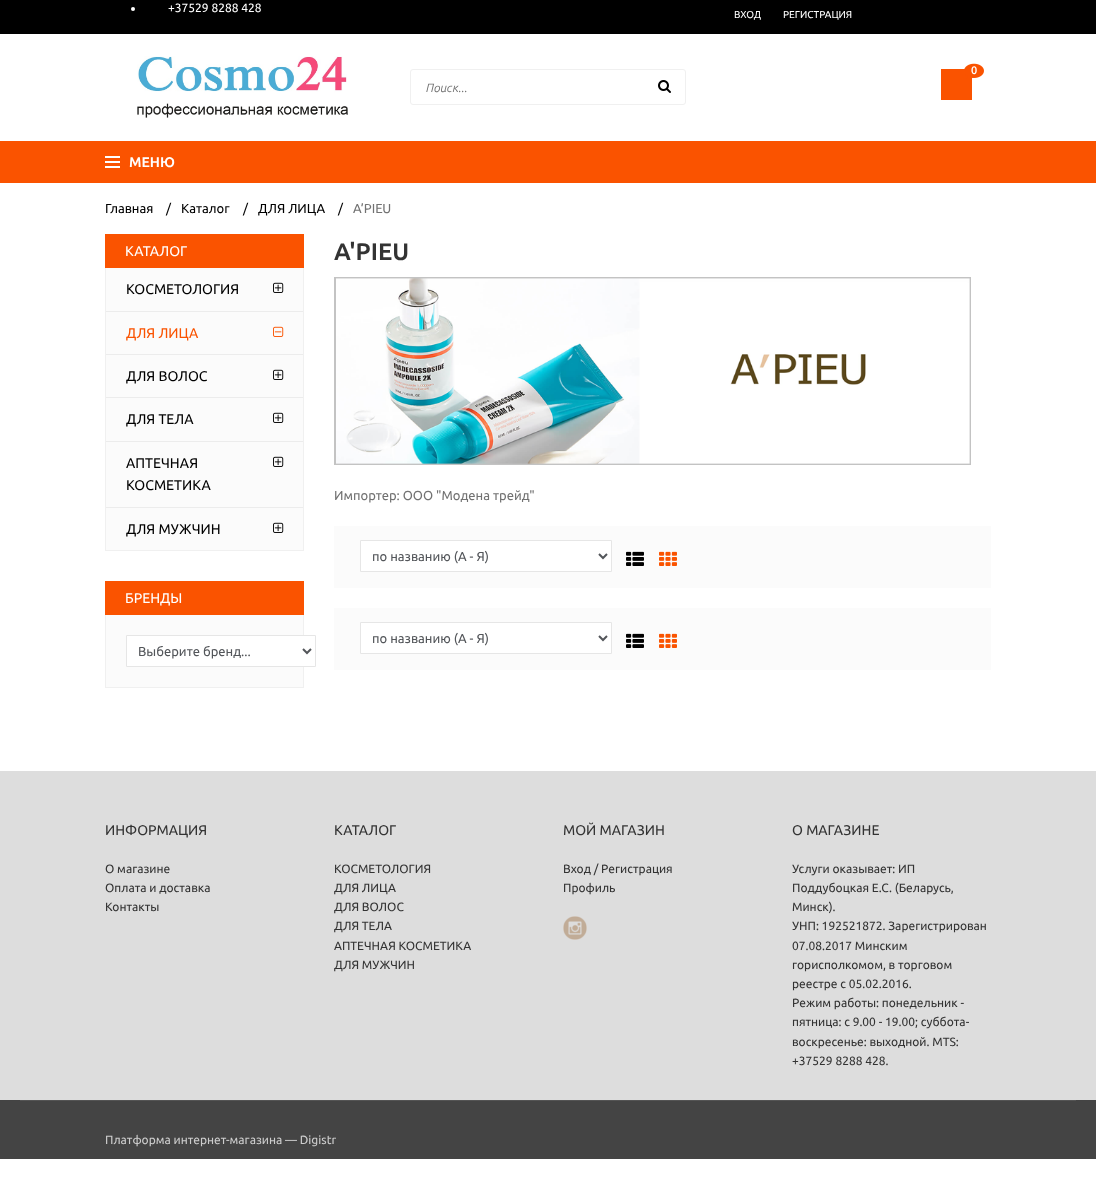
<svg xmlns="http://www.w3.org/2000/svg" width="1096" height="1185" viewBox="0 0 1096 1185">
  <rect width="100%" height="100%" fill="#fff"/>
  <path d="M0 0h1096v34H0z" fill="#000"/>
  <circle cx="133" cy="9" r="2" fill="#fff"/>
  <image x="137" y="56" width="211" height="62" href="img/1.png"/>
  <path d="M941 69h31v31H941z" fill="#fa5300"/>
  <image x="964" y="63" width="20" height="16" href="img/2.png"/>
  <rect x="410.5" y="69.5" width="275" height="35" rx="2.5" fill="none" stroke="#f0f0f0"/>
  <image x="658" y="80" width="13" height="13" href="img/3.png"/>
  <path d="M0 141h1096v42H0z" fill="#fa5300"/>
  <path d="M105 156h15v2H105z" fill="#fff"/>
  <path d="M105 161h15v2H105z" fill="#fff"/>
  <path d="M105 166h15v2H105z" fill="#fff"/>
  <path d="M105 234h199v34H105z" fill="#fa5300"/>
  <path d="M303 268h1v283H303z" fill="#f0f0f0"/>
  <path d="M105 550h199v1H105z" fill="#f0f0f0"/>
  <path d="M105 268h1v283H105z" fill="#f0f0f0"/>
  <path d="M106 268h197v282H106z" fill="#fbfbfb"/>
  <image x="273" y="282" width="11" height="11" href="img/4.png"/>
  <path d="M106 311h197v1H106z" fill="#ececec"/>
  <image x="273" y="326" width="11" height="11" href="img/5.png"/>
  <path d="M106 354h197v1H106z" fill="#ececec"/>
  <image x="273" y="369" width="11" height="11" href="img/4.png"/>
  <path d="M106 397h197v1H106z" fill="#ececec"/>
  <image x="273" y="412" width="11" height="11" href="img/4.png"/>
  <path d="M106 441h197v1H106z" fill="#ececec"/>
  <image x="273" y="456" width="11" height="11" href="img/4.png"/>
  <path d="M106 507h197v1H106z" fill="#ececec"/>
  <image x="273" y="522" width="11" height="11" href="img/4.png"/>
  <path d="M105 581h199v34H105z" fill="#fa5300"/>
  <path d="M303 615h1v73H303z" fill="#f0f0f0"/>
  <path d="M105 687h199v1H105z" fill="#f0f0f0"/>
  <path d="M105 615h1v73H105z" fill="#f0f0f0"/>
  <path d="M106 615h197v72H106z" fill="#fbfbfb"/>
  <path d="M127 636h177v30H127z" fill="#fff"/>
  <path d="M126.5 635.5h189v31H126.5z" fill="none" stroke="#e6e6e6"/>
  <path d="M303 649L307 653L311 649" fill="none" stroke="#53565a" stroke-width="2"/>
  <image x="334" y="277" width="637" height="188" href="img/6.png"/>
  <path d="M334 526h657v62H334z" fill="#fbfbfb"/>
  <path d="M360.5 540.5h251v31H360.5z" fill="#fff" stroke="#e6e6e6"/>
  <path d="M599 554L603 558L607 554" fill="none" stroke="#53565a" stroke-width="2"/>
  <image x="626" y="551" width="18" height="15" href="img/7.png"/>
  <image x="659" y="551" width="18" height="15" href="img/8.png"/>
  <path d="M334 608h657v62H334z" fill="#fbfbfb"/>
  <path d="M360.5 622.5h251v31H360.5z" fill="#fff" stroke="#e6e6e6"/>
  <path d="M599 636L603 640L607 636" fill="none" stroke="#53565a" stroke-width="2"/>
  <image x="626" y="633" width="18" height="15" href="img/7.png"/>
  <image x="659" y="633" width="18" height="15" href="img/8.png"/>
  <path d="M0 771h1096v329H0z" fill="#ddd"/>
  <image x="563" y="916" width="24" height="24" href="img/9.png"/>
  <path d="M0 1100h1096v59H0z" fill="#444"/>
  <path d="M20 1100h1056v1H20z" fill="#545454"/>
  <text x="168" y="12" font-family="Ubuntu" font-size="12" fill="#fff">+37529 8288 428</text>
  <g font-family="Ubuntu" font-size="10" fill="#fff">
    <text x="734" y="18">ВХОД</text>
    <text x="783" y="18">РЕГИСТРАЦИЯ</text>
  </g>
  <text x="971" y="74" font-family="Ubuntu" font-size="11" font-weight="600" fill="#fff">0</text>
  <text x="426" y="92" font-family="Ubuntu" font-size="12" font-style="italic" fill="#727272">Поиск...</text>
  <text x="129" y="167" font-family="Ubuntu" font-size="14" font-weight="bold" fill="#fff">МЕНЮ</text>
  <g font-family="Ubuntu" font-size="13" fill="#000">
    <text x="105" y="213">Главная</text>
    <text x="166" y="213">/</text>
    <text x="181" y="213">Каталог</text>
    <text x="243" y="213">/</text>
    <text x="258" y="213">ДЛЯ ЛИЦА</text>
    <text x="338" y="213">/</text>
  </g>
  <text x="353" y="213" font-family="Ubuntu" font-size="13" fill="#727272">A’PIEU</text>
  <text x="125" y="256" font-family="Ubuntu" font-size="14" fill="#fff">КАТАЛОГ</text>
  <text x="126" y="294" font-family="Ubuntu" font-size="14" fill="#000">КОСМЕТОЛОГИЯ</text>
  <text x="126" y="338" font-family="Ubuntu" font-size="14" fill="#fa5300">ДЛЯ ЛИЦА</text>
  <g font-family="Ubuntu" font-size="14" fill="#000">
    <text x="126" y="381">ДЛЯ ВОЛОС</text>
    <text x="126" y="424">ДЛЯ ТЕЛА</text>
    <text x="126" y="468">АПТЕЧНАЯ</text>
    <text x="126" y="490">КОСМЕТИКА</text>
    <text x="126" y="534">ДЛЯ МУЖЧИН</text>
  </g>
  <text x="125" y="603" font-family="Ubuntu" font-size="14" fill="#fff">БРЕНДЫ</text>
  <text x="138" y="656" font-family="Ubuntu" font-size="13" fill="#53565a">Выберите бренд...</text>
  <text x="334" y="260" font-family="Ubuntu" font-size="24" font-weight="bold" fill="#333">A'PIEU</text>
  <text x="334" y="500" font-family="Ubuntu" font-size="13" fill="#727272">Импортер: ООО "Модена трейд"</text>
  <g font-family="Ubuntu" font-size="13" fill="#53565a">
    <text x="372" y="561">по названию (А - Я)</text>
    <text x="372" y="643">по названию (А - Я)</text>
  </g>
  <text x="105" y="835" font-family="Ubuntu" font-size="14" fill="#333">ИНФОРМАЦИЯ</text>
  <g font-family="Ubuntu" font-size="12" fill="#333">
    <text x="105" y="873">О магазине</text>
    <text x="105" y="892">Оплата и доставка</text>
    <text x="105" y="911">Контакты</text>
  </g>
  <text x="334" y="835" font-family="Ubuntu" font-size="14" fill="#333">КАТАЛОГ</text>
  <g font-family="Ubuntu" font-size="12" fill="#333">
    <text x="334" y="873">КОСМЕТОЛОГИЯ</text>
    <text x="334" y="892">ДЛЯ ЛИЦА</text>
    <text x="334" y="911">ДЛЯ ВОЛОС</text>
    <text x="334" y="930">ДЛЯ ТЕЛА</text>
    <text x="334" y="950">АПТЕЧНАЯ КОСМЕТИКА</text>
    <text x="334" y="969">ДЛЯ МУЖЧИН</text>
  </g>
  <text x="563" y="835" font-family="Ubuntu" font-size="14" fill="#333">МОЙ МАГАЗИН</text>
  <g font-family="Ubuntu" font-size="12" fill="#333">
    <text x="563" y="873">Вход / Регистрация</text>
    <text x="563" y="892">Профиль</text>
  </g>
  <text x="792" y="835" font-family="Ubuntu" font-size="14" fill="#333">О МАГАЗИНЕ</text>
  <g font-family="Ubuntu" font-size="12" fill="#333">
    <text x="792" y="873">Услуги оказывает: ИП</text>
    <text x="792" y="892">Поддубоцкая Е.С. (Беларусь,</text>
    <text x="792" y="911">Минск).</text>
    <text x="792" y="930">УНП: 192521872. Зарегистрирован</text>
    <text x="792" y="950">07.08.2017 Минским</text>
    <text x="792" y="969">горисполкомом, в торговом</text>
    <text x="792" y="988">реестре с 05.02.2016.</text>
    <text x="792" y="1007">Режим работы: понедельник -</text>
    <text x="792" y="1026">пятница: с 9.00 - 19.00; суббота-</text>
    <text x="792" y="1046">воскресенье: выходной. MTS:</text>
    <text x="792" y="1065">+37529 8288 428.</text>
  </g>
  <text x="105" y="1144" font-family="Ubuntu" font-size="12" fill="#ccc">Платформа интернет-магазина — Digistr</text>
</svg>
